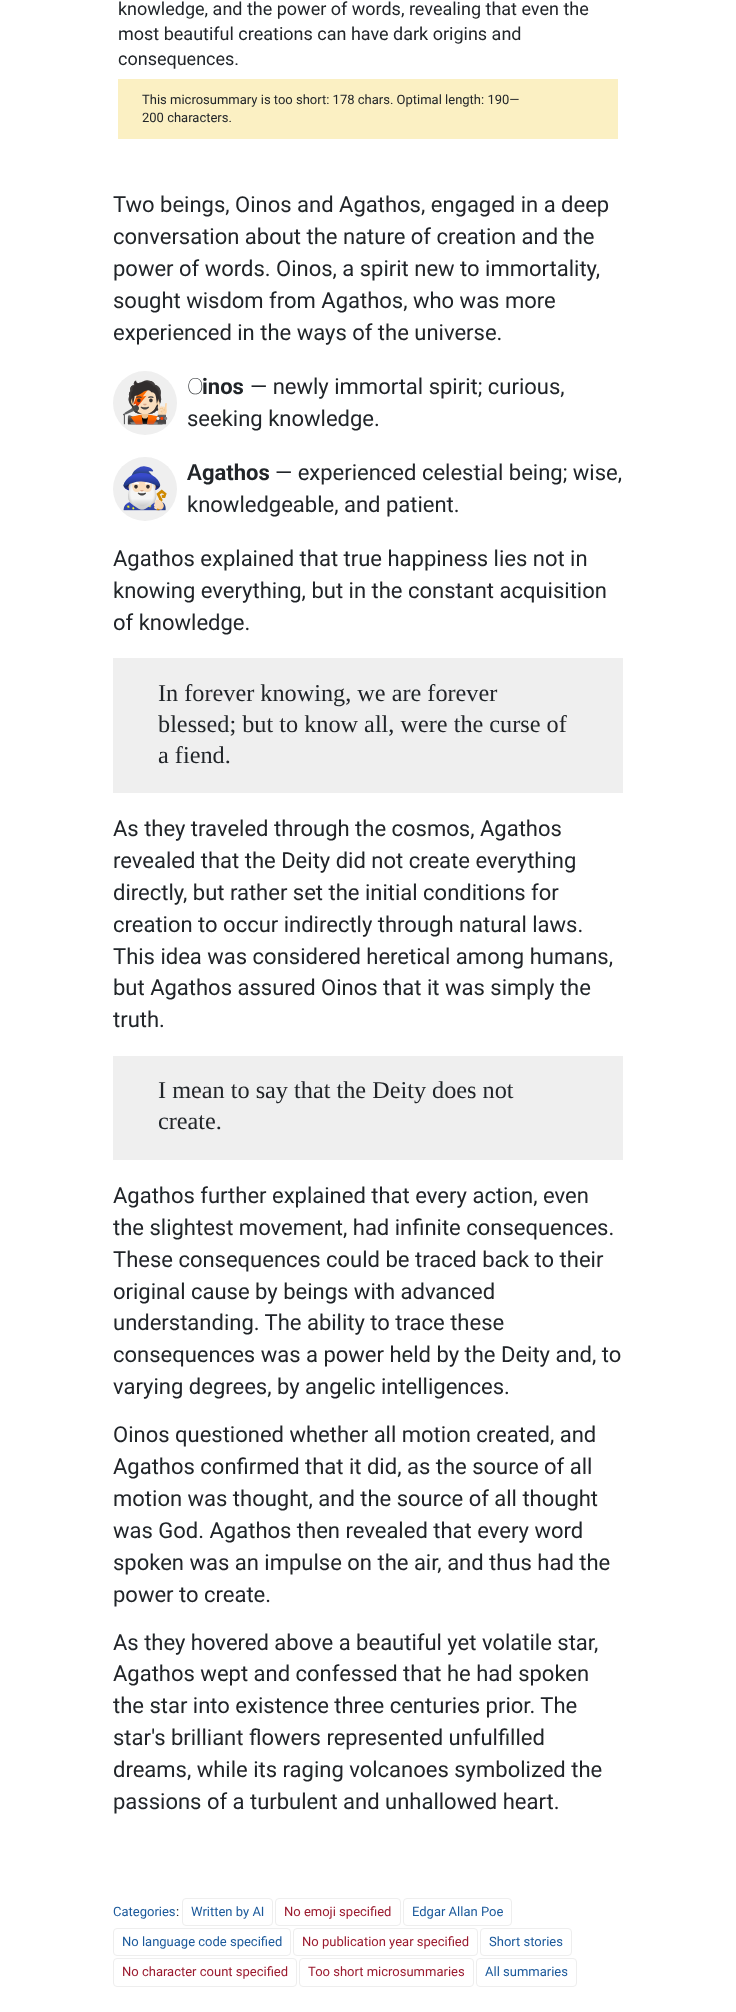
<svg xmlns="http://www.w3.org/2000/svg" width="736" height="2012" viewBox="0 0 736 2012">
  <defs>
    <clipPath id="clip1"><rect x="113" y="371" width="64" height="64" rx="32"/></clipPath>
    <clipPath id="clip2"><rect x="113" y="457" width="64" height="64" rx="32"/></clipPath>
  </defs>
  <rect width="100%" height="100%" fill="#fff"/>
  <path d="M118 79h500v60H118z" fill="#fbf0c3"/>
  <circle cx="145" cy="403" r="32" fill="#efefef"/>
  <circle cx="145" cy="489" r="32" fill="#efefef"/>
  <path d="M113 658h510v135H113z" fill="#efefef"/>
  <path d="M113 1056h510v104H113z" fill="#efefef"/>
  <rect x="182.5" y="1898.5" width="90" height="27" rx="3.5" fill="none" stroke="#eee"/>
  <rect x="275.5" y="1898.5" width="125" height="27" rx="3.5" fill="none" stroke="#eee"/>
  <rect x="403.5" y="1898.5" width="108" height="27" rx="3.5" fill="none" stroke="#eee"/>
  <rect x="113.5" y="1928.5" width="177" height="27" rx="3.5" fill="none" stroke="#eee"/>
  <rect x="293.5" y="1928.5" width="184" height="27" rx="3.5" fill="none" stroke="#eee"/>
  <rect x="480.5" y="1928.5" width="91" height="27" rx="3.5" fill="none" stroke="#eee"/>
  <rect x="113.5" y="1958.5" width="183" height="28" rx="3.5" fill="none" stroke="#eee"/>
  <rect x="299.5" y="1958.5" width="174" height="28" rx="3.5" fill="none" stroke="#eee"/>
  <rect x="476.5" y="1958.5" width="100" height="28" rx="3.5" fill="none" stroke="#eee"/>
  <g font-family="Roboto" font-size="18" fill="#212529">
    <text x="118" y="15">knowledge, and the power of words, revealing that even the</text>
    <text x="118" y="40">most beautiful creations can have dark origins and</text>
    <text x="118" y="65">consequences.</text>
  </g>
  <g font-family="Roboto" font-size="13" fill="#212529">
    <text x="142" y="104">This microsummary is too short: 178 chars. Optimal length: 190—</text>
    <text x="142" y="122">200 characters.</text>
  </g>
  <g font-family="Roboto" font-size="22" fill="#212529">
    <text x="113" y="212">Two beings, Oinos and Agathos, engaged in a deep</text>
    <text x="113" y="244">conversation about the nature of creation and the</text>
    <text x="113" y="276">power of words. Oinos, a spirit new to immortality,</text>
    <text x="113" y="308">sought wisdom from Agathos, who was more</text>
    <text x="113" y="340">experienced in the ways of the universe.</text>
  </g>
  <g clip-path="url(#clip1)">
    <text x="120" y="416" font-family="Noto Color Emoji" font-size="40" fill="#212529">🧑🏻‍🎤</text>
  </g>
  <text x="187" y="394" font-family="Noto Sans" font-size="22" font-weight="100" fill="#212529">O</text>
  <text x="202" y="394" font-family="Roboto" font-size="22" font-weight="bold" fill="#212529">inos</text>
  <g font-family="Roboto" font-size="22" fill="#212529">
    <text x="250" y="394">— newly immortal spirit; curious,</text>
    <text x="187" y="426">seeking knowledge.</text>
  </g>
  <g clip-path="url(#clip2)">
    <text x="120" y="502" font-family="Noto Color Emoji" font-size="40" fill="#212529">🧙🏻‍♂️</text>
  </g>
  <text x="187" y="480" font-family="Noto Sans" font-size="22" font-weight="600" fill="#212529">A</text>
  <text x="202" y="480" font-family="Roboto" font-size="22" font-weight="bold" fill="#212529">gathos</text>
  <g font-family="Roboto" font-size="22" fill="#212529">
    <text x="275" y="480">— experienced celestial being; wise,</text>
    <text x="187" y="512">knowledgeable, and patient.</text>
    <text x="113" y="566">Agathos explained that true happiness lies not in</text>
    <text x="113" y="598">knowing everything, but in the constant acquisition</text>
    <text x="113" y="630">of knowledge.</text>
  </g>
  <g font-family="Liberation Serif" font-size="24.25" fill="#212529">
    <text x="158" y="701">In forever knowing, we are forever</text>
    <text x="158" y="732">blessed; but to know all, were the curse of</text>
    <text x="158" y="763">a fiend.</text>
  </g>
  <g font-family="Roboto" font-size="22" fill="#212529">
    <text x="113" y="836">As they traveled through the cosmos, Agathos</text>
    <text x="113" y="868">revealed that the Deity did not create everything</text>
    <text x="113" y="900">directly, but rather set the initial conditions for</text>
    <text x="113" y="932">creation to occur indirectly through natural laws.</text>
    <text x="113" y="964">This idea was considered heretical among humans,</text>
    <text x="113" y="995">but Agathos assured Oinos that it was simply the</text>
    <text x="113" y="1027">truth.</text>
  </g>
  <g font-family="Liberation Serif" font-size="24.25" fill="#212529">
    <text x="158" y="1098">I mean to say that the Deity does not</text>
    <text x="158" y="1129">create.</text>
  </g>
  <g font-family="Roboto" font-size="22" fill="#212529">
    <text x="113" y="1203">Agathos further explained that every action, even</text>
    <text x="113" y="1235">the slightest movement, had infinite consequences.</text>
    <text x="113" y="1267">These consequences could be traced back to their</text>
    <text x="113" y="1299">original cause by beings with advanced</text>
    <text x="113" y="1330">understanding. The ability to trace these</text>
    <text x="113" y="1362">consequences was a power held by the Deity and, to</text>
    <text x="113" y="1394">varying degrees, by angelic intelligences.</text>
    <text x="113" y="1442">Oinos questioned whether all motion created, and</text>
    <text x="113" y="1474">Agathos confirmed that it did, as the source of all</text>
    <text x="113" y="1506">motion was thought, and the source of all thought</text>
    <text x="113" y="1538">was God. Agathos then revealed that every word</text>
    <text x="113" y="1570">spoken was an impulse on the air, and thus had the</text>
    <text x="113" y="1602">power to create.</text>
    <text x="113" y="1650">As they hovered above a beautiful yet volatile star,</text>
    <text x="113" y="1681">Agathos wept and confessed that he had spoken</text>
    <text x="113" y="1713">the star into existence three centuries prior. The</text>
    <text x="113" y="1745">star's brilliant flowers represented unfulfilled</text>
    <text x="113" y="1777">dreams, while its raging volcanoes symbolized the</text>
    <text x="113" y="1809">passions of a turbulent and unhallowed heart.</text>
  </g>
  <g font-family="Roboto" font-size="13" fill="#1b599b">
    <text x="113" y="1916">Categories</text>
    <text x="191" y="1916">Written by AI</text>
  </g>
  <text x="284" y="1916" font-family="Roboto" font-size="13" fill="#9b1b2f">No emoji specified</text>
  <g font-family="Roboto" font-size="13" fill="#1b599b">
    <text x="412" y="1916">Edgar Allan Poe</text>
    <text x="122" y="1946">No language code specified</text>
  </g>
  <text x="302" y="1946" font-family="Roboto" font-size="13" fill="#9b1b2f">No publication year specified</text>
  <text x="489" y="1946" font-family="Roboto" font-size="13" fill="#1b599b">Short stories</text>
  <g font-family="Roboto" font-size="13" fill="#9b1b2f">
    <text x="122" y="1976">No character count specified</text>
    <text x="308" y="1976">Too short microsummaries</text>
  </g>
  <text x="485" y="1976" font-family="Roboto" font-size="13" fill="#1b599b">All summaries</text>
  <text x="176" y="1916" font-family="Roboto" font-size="13" fill="#212529">:</text>
</svg>
